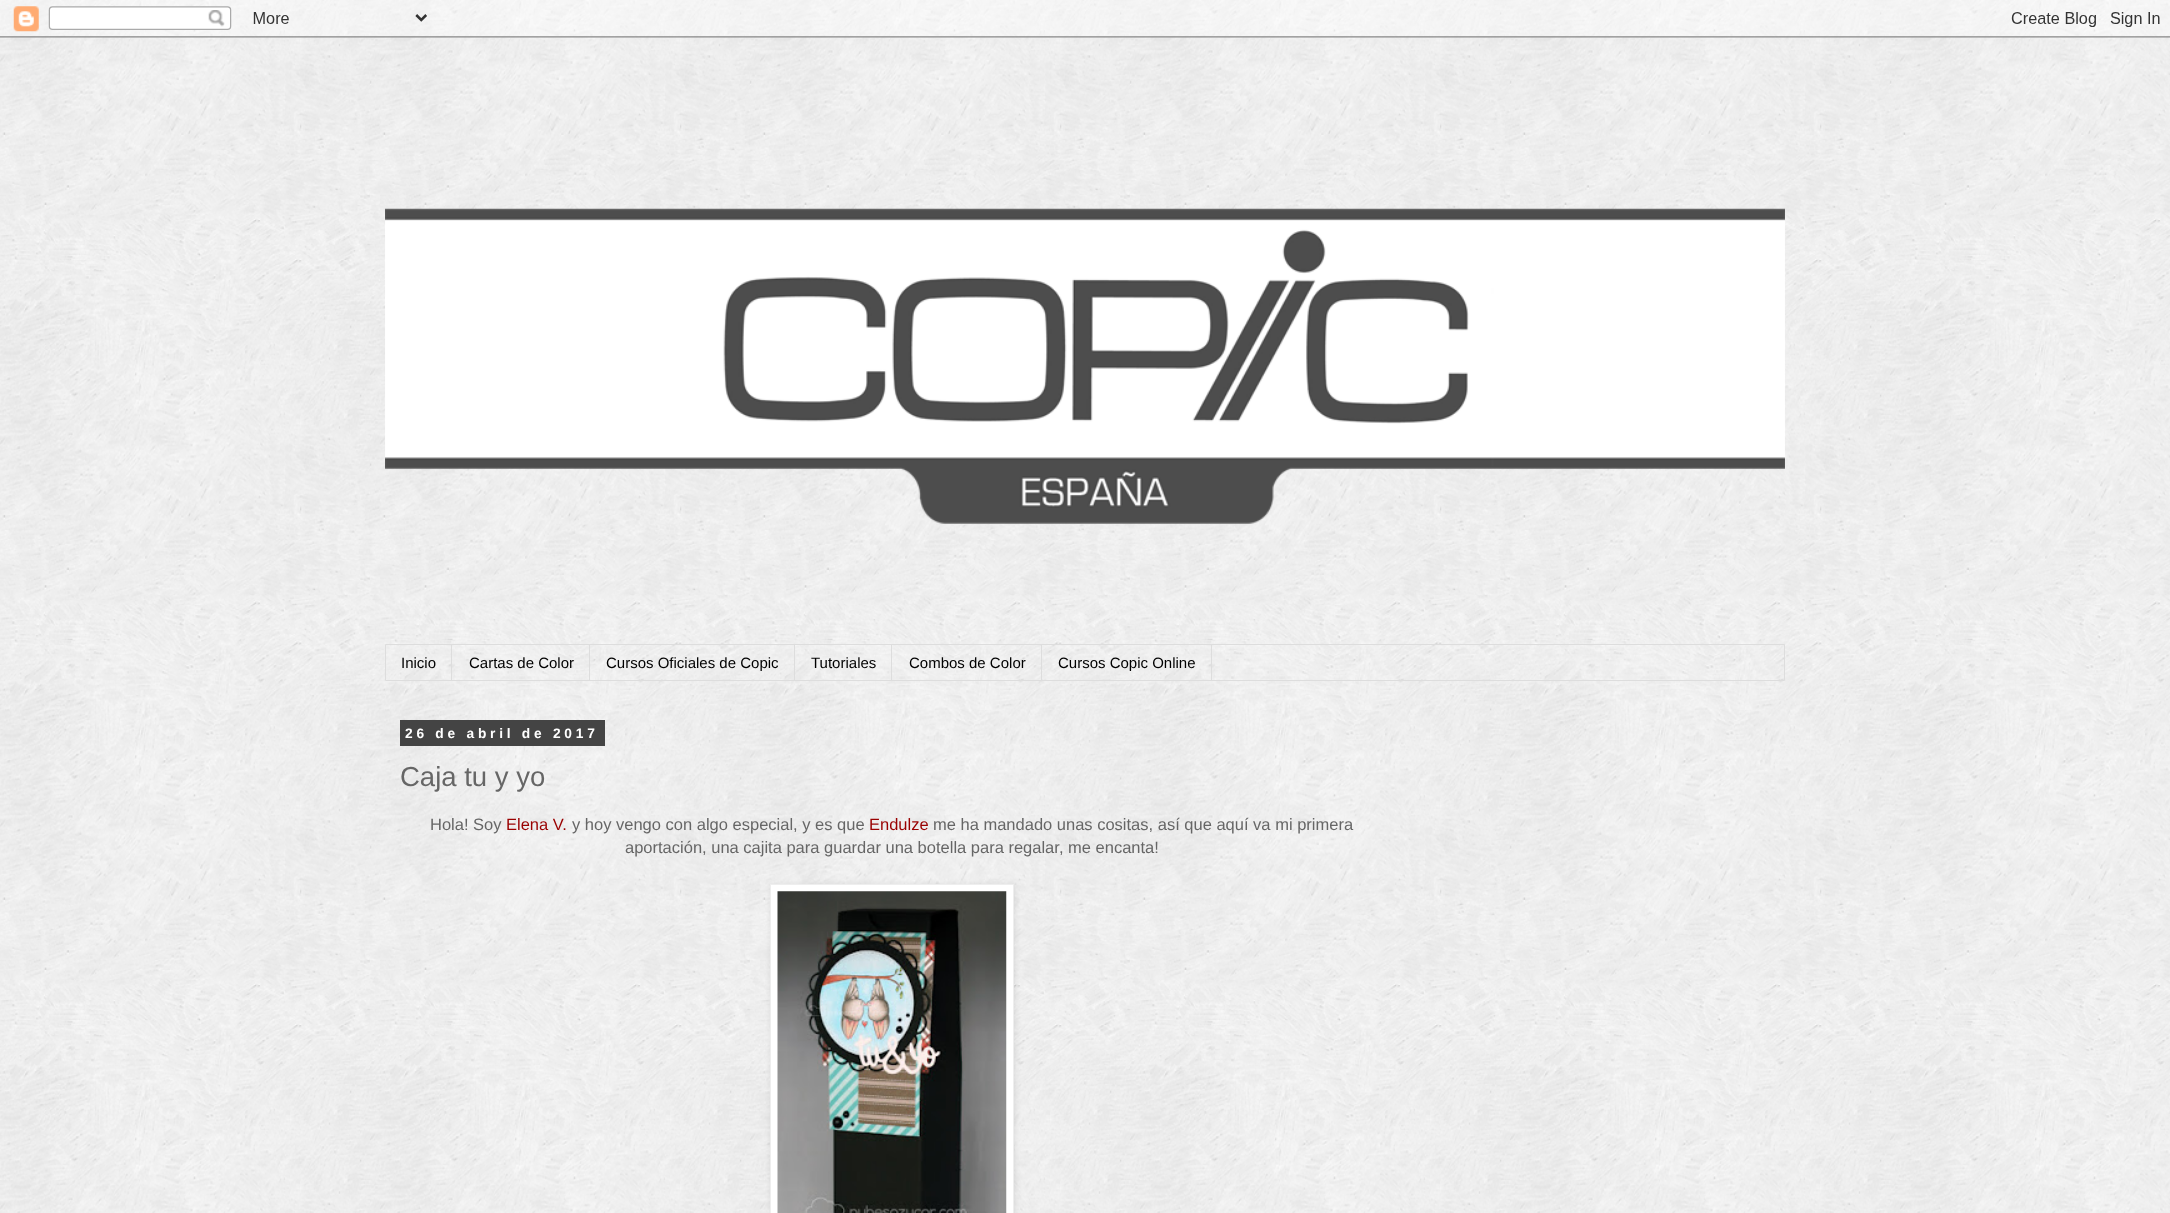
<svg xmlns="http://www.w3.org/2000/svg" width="2170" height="1213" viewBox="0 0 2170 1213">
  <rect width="100%" height="100%" fill="#fff"/>
  <image x="0" y="0" width="2170" height="1213" href="img/1.png"/>
  <image x="0" y="0" width="2170" height="38" href="img/2.png"/>
  <image x="385" y="208" width="1400" height="316" href="img/3.png"/>
  <path d="M385.5 644.5h1399v36H385.5z" fill="none" stroke="#ddd"/>
  <path d="M451 645h1v35H451z" fill="#ddd"/>
  <path d="M589 645h1v35H589z" fill="#ddd"/>
  <path d="M794 645h1v35H794z" fill="#ddd"/>
  <path d="M891 645h1v35H891z" fill="#ddd"/>
  <path d="M1041 645h1v35H1041z" fill="#ddd"/>
  <path d="M1211 645h1v35H1211z" fill="#ddd"/>
  <path d="M400 720h205v26H400z" fill="#444"/>
  <path d="M771 885h244v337H771z" fill="#0000001a" filter="blur(3px)"/>
  <path d="M770.5 884.5h243v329H770.5z" fill="#fff" stroke="#eee"/>
  <image x="777" y="891" width="230" height="322" href="img/4.png"/>
  <g font-family="Liberation Sans" font-size="15" fill="#000">
    <text x="401" y="668">Inicio</text>
    <text x="469" y="668">Cartas de Color</text>
    <text x="606" y="668">Cursos Oficiales de Copic</text>
    <text x="811" y="668">Tutoriales</text>
    <text x="909" y="668">Combos de Color</text>
    <text x="1058" y="668">Cursos Copic Online</text>
  </g>
  <text x="405" y="738" font-family="Liberation Sans" font-size="13.75" font-weight="bold" letter-spacing="3.75" fill="#fff">26 de abril de 2017</text>
  <text x="400" y="786" font-family="Liberation Sans" font-size="27.5" fill="#666">Caja tu y yo</text>
  <text x="430" y="830" font-family="Liberation Sans" font-size="16.5" fill="#666">Hola! Soy</text>
  <text x="506" y="830" font-family="Liberation Sans" font-size="16.5" fill="#900">Elena V.</text>
  <text x="572" y="830" font-family="Liberation Sans" font-size="16.5" fill="#666">y hoy vengo con algo especial, y es que</text>
  <text x="869" y="830" font-family="Liberation Sans" font-size="16.5" fill="#900">Endulze</text>
  <g font-family="Liberation Sans" font-size="16.5" fill="#666">
    <text x="933" y="830">me ha mandado unas cositas, así que aquí va mi primera</text>
    <text x="625" y="853">aportación, una cajita para guardar una botella para regalar, me encanta!</text>
  </g>
</svg>
